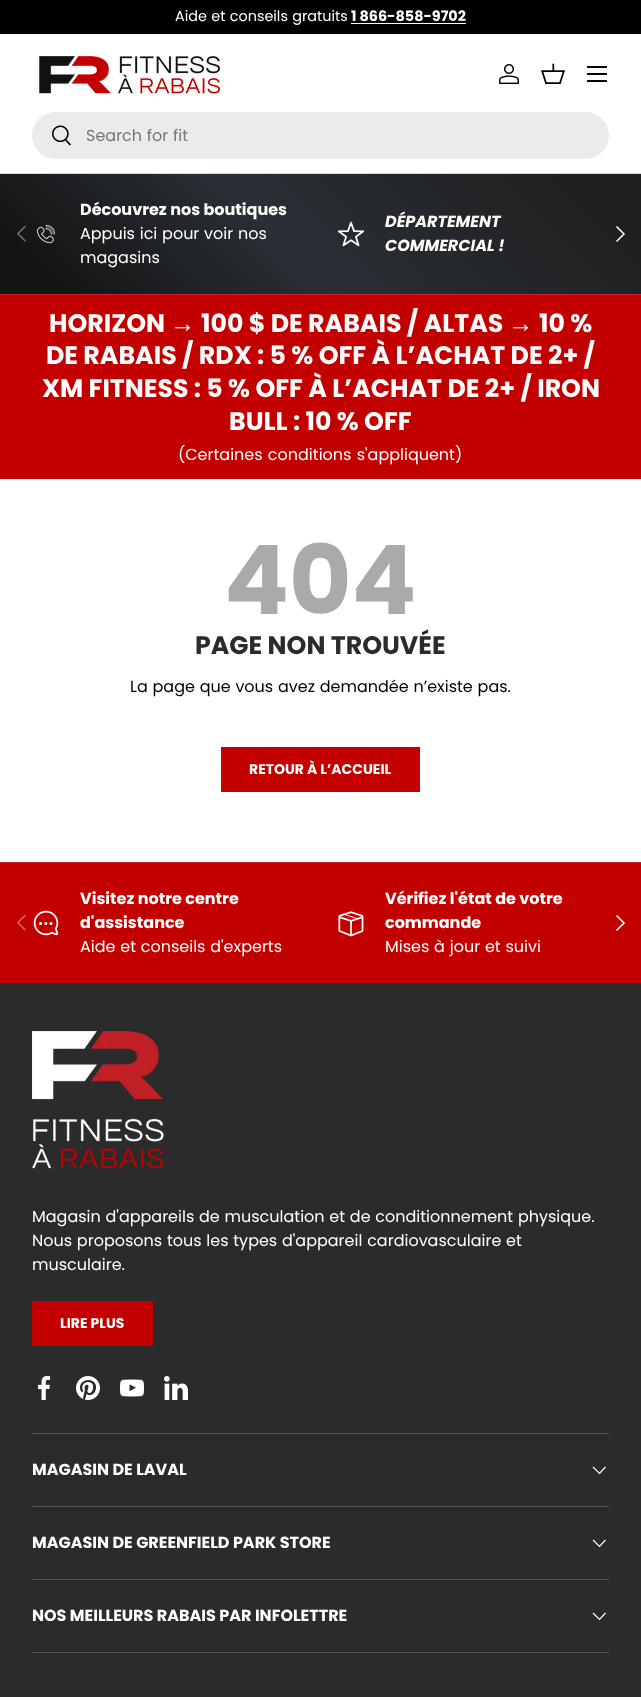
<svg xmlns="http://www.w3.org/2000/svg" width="641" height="1697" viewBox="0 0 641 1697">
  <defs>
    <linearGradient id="g1" gradientUnits="userSpaceOnUse" x1="511" y1="44" x2="130" y2="424"><stop offset="0.08" stop-color="#1f1f1f"/><stop offset="0.56" stop-color="#292f36"/><stop offset="0.92" stop-color="#141414"/></linearGradient>
    <linearGradient id="g2" gradientUnits="userSpaceOnUse" x1="-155" y1="700" x2="406" y2="839"><stop offset="0.6" stop-color="#d72929"/><stop offset="0.6" stop-color="#c20000"/><stop offset="1" stop-color="#c20000"/></linearGradient>
    <linearGradient id="g3" gradientUnits="userSpaceOnUse" x1="-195" y1="1281" x2="146" y2="1366"><stop offset="0.6" stop-color="#d72929"/><stop offset="0.6" stop-color="#c20000"/><stop offset="1" stop-color="#c20000"/></linearGradient>
  </defs>
  <rect width="100%" height="100%" fill="#fff"/>
  <path d="M0 0h641v34H0z" fill="#000"/>
  <path d="M351 23h115v1H351z" fill="#fff"/>
  <path d="M0 173h641v1H0z" fill="#d9d9d9"/>
  <image x="39" y="56" width="182" height="38" href="img/1.png"/>
  <image x="499" y="64" width="20" height="20" href="img/2.png"/>
  <image x="541" y="63" width="24" height="21" href="img/3.png"/>
  <path d="M587 66h20v2H587z" fill="#000"/>
  <path d="M587 80h20v2H587z" fill="#000"/>
  <path d="M587 73h20v2H587z" fill="#000"/>
  <rect x="32" y="112" width="577" height="47" rx="23.5" fill="#ebebeb"/>
  <image x="52" y="125" width="19" height="21" href="img/4.png"/>
  <path d="M0 174h641v120H0z" fill="url(#g1)"/>
  <image x="36" y="224" width="20" height="20" href="img/5.png"/>
  <image x="337" y="221" width="28" height="26" href="img/6.png"/>
  <image x="17" y="225" width="9" height="17" href="img/7.png"/>
  <path d="M616.5 226.5L624 234L616.5 241.5" fill="none" stroke="#fff" stroke-width="1.5"/>
  <path d="M0 295h641v184H0z" fill="#c20000"/>
  <path d="M0 294h641v1H0z" fill="#cb2626"/>
  <path d="M223 749h195v41H223z" fill="url(#g2)"/>
  <path d="M222 748h197v43H222z" fill="none" stroke="#c20000" stroke-width="2"/>
  <path d="M0 863h641v120H0z" fill="#c20000"/>
  <path d="M0 862h641v1H0z" fill="#cb2626"/>
  <image x="33" y="910" width="26" height="26" href="img/8.png"/>
  <image x="338" y="911" width="26" height="26" href="img/9.png"/>
  <image x="17" y="914" width="9" height="17" href="img/10.png"/>
  <path d="M616.5 915.5L624 923L616.5 930.5" fill="none" stroke="#fff" stroke-width="1.5"/>
  <path d="M0 983h641v714H0z" fill="#2a2b2a"/>
  <image x="32" y="1031" width="132" height="138" href="img/11.png"/>
  <path d="M34 1303h117v41H34z" fill="url(#g3)"/>
  <path d="M33 1302h119v43H33z" fill="none" stroke="#c20000" stroke-width="2"/>
  <image x="38" y="1376" width="12" height="24" href="img/12.png"/>
  <image x="76" y="1376" width="24" height="24" href="img/13.png"/>
  <image x="120" y="1379" width="24" height="18" href="img/14.png"/>
  <image x="164" y="1376" width="24" height="24" href="img/15.png"/>
  <path d="M32 1433h577v1H32z" fill="#555"/>
  <path d="M32 1506h577v1H32z" fill="#555"/>
  <path d="M605.5 1467L599.5 1473.5L593 1467" fill="none" stroke="#fff" stroke-width="1.2"/>
  <path d="M32 1579h577v1H32z" fill="#555"/>
  <path d="M605.5 1540L599.5 1546.5L593 1540" fill="none" stroke="#fff" stroke-width="1.2"/>
  <path d="M32 1652h577v1H32z" fill="#555"/>
  <path d="M605.5 1613L599.5 1619.5L593 1613" fill="none" stroke="#fff" stroke-width="1.2"/>
  <text x="175" y="21" word-spacing="0.5" font-family="Poppins" font-size="14.4" fill="#fff">Aide et conseils gratuits</text>
  <text x="351" y="21" font-family="Poppins" font-size="14.4" font-weight="bold" fill="#fff">1 866-858-9702</text>
  <text x="86" y="141" word-spacing="0.5" font-family="Poppins" font-size="16" fill="#767676">Search for fit</text>
  <text x="80" y="215" font-family="Poppins" font-size="16" font-weight="bold" fill="#fff">Découvrez nos boutiques</text>
  <g font-family="Poppins" font-size="16" fill="#fff">
    <text x="80" y="239" word-spacing="0.5">Appuis ici pour voir nos</text>
    <text x="80" y="263">magasins</text>
  </g>
  <g font-family="Poppins" font-size="16" font-weight="bold" font-style="italic" fill="#fff">
    <text x="385" y="227">DÉPARTEMENT</text>
    <text x="385" y="251">COMMERCIAL !</text>
  </g>
  <text x="49" y="332" font-family="Poppins" font-size="25.25" font-weight="bold" fill="#fff">HORIZON</text>
  <text x="170" y="332" font-family="Liberation Sans" font-size="25.25" font-weight="bold" fill="#fff">→</text>
  <text x="201" y="332" font-family="Poppins" font-size="25.25" font-weight="bold" fill="#fff">100 $ DE RABAIS / ALTAS</text>
  <text x="508" y="332" font-family="Liberation Sans" font-size="25.25" font-weight="bold" fill="#fff">→</text>
  <g font-family="Poppins" font-size="25.25" font-weight="bold" fill="#fff">
    <text x="539" y="332">10 %</text>
    <text x="46" y="364">DE RABAIS / RDX : 5 % OFF À L’ACHAT DE 2+ /</text>
    <text x="42" y="397">XM FITNESS : 5 % OFF À L’ACHAT DE 2+ / IRON</text>
    <text x="229" y="430">BULL : 10 % OFF</text>
  </g>
  <text x="178" y="460" word-spacing="1" font-family="Poppins" font-size="16" fill="#fff">(Certaines conditions s'appliquent)</text>
  <text x="224" y="614" font-family="Poppins" font-size="96" font-weight="bold" fill="#aaa">404</text>
  <text x="195" y="654" font-family="Poppins" font-size="25.25" font-weight="bold" fill="#2a2b2a">PAGE NON TROUVÉE</text>
  <text x="130" y="692" word-spacing="0.5" font-family="Poppins" font-size="16" fill="#000">La page que vous avez demandée n’existe pas.</text>
  <text x="249" y="774" font-family="Poppins" font-size="14" font-weight="bold" fill="#fff">RETOUR À L’ACCUEIL</text>
  <g font-family="Poppins" font-size="16" font-weight="bold" fill="#fff">
    <text x="80" y="904">Visitez notre centre</text>
    <text x="80" y="928">d'assistance</text>
  </g>
  <text x="80" y="952" word-spacing="0.5" font-family="Poppins" font-size="16" fill="#fff">Aide et conseils d'experts</text>
  <g font-family="Poppins" font-size="16" font-weight="bold" fill="#fff">
    <text x="385" y="904">Vérifiez l'état de votre</text>
    <text x="385" y="928">commande</text>
  </g>
  <g font-family="Poppins" font-size="16" fill="#fff">
    <text x="385" y="952" word-spacing="0.5">Mises à jour et suivi</text>
    <text x="32" y="1222" word-spacing="0.5">Magasin d'appareils de musculation et de conditionnement physique.</text>
    <text x="32" y="1246" word-spacing="0.5">Nous proposons tous les types d'appareil cardiovasculaire et</text>
    <text x="32" y="1270">musculaire.</text>
  </g>
  <text x="60" y="1328" font-family="Poppins" font-size="14" font-weight="bold" fill="#fff">LIRE PLUS</text>
  <g font-family="Poppins" font-size="16" font-weight="bold" fill="#fff">
    <text x="32" y="1475">MAGASIN DE LAVAL</text>
    <text x="32" y="1548">MAGASIN DE GREENFIELD PARK STORE</text>
    <text x="32" y="1621">NOS MEILLEURS RABAIS PAR INFOLETTRE</text>
  </g>
</svg>
